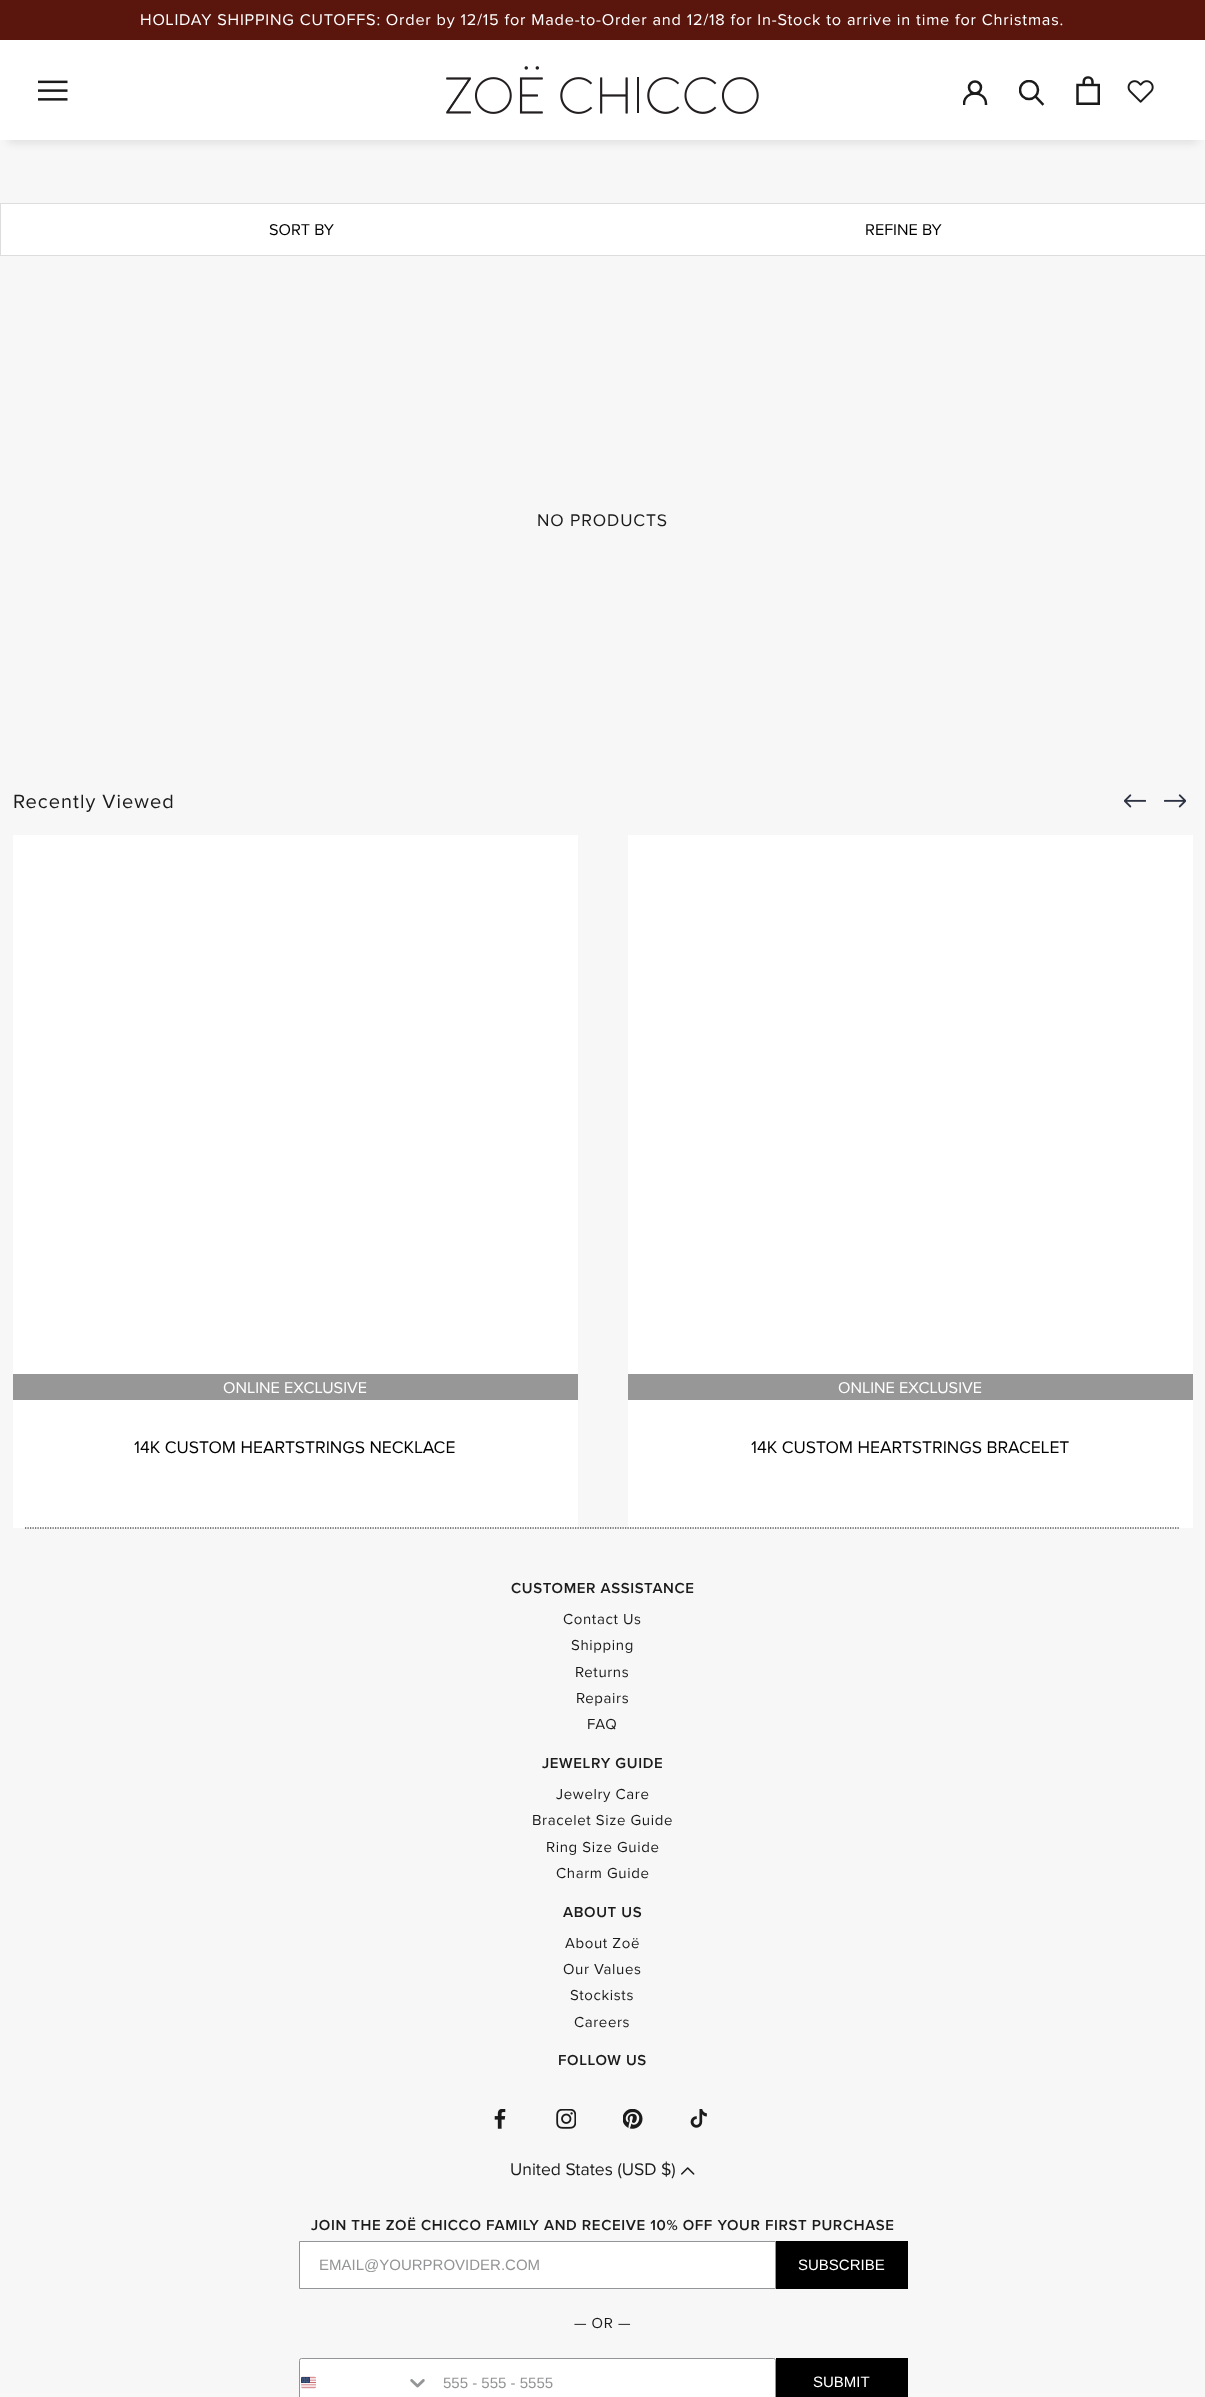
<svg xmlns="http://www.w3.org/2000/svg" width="1205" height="2397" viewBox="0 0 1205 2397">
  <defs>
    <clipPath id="clip1"><path d="M963 80h25v25H963z"/></clipPath>
    <clipPath id="clip2"><path d="M1019 80h26v26H1019z"/></clipPath>
  </defs>
  <rect width="100%" height="100%" fill="#f7f7f7"/>
  <path d="M0 0h1205v40H0z" fill="#5a150d"/>
  <path d="M8 58h1190v85H8z" fill="#0d0d0d1a" filter="blur(4px)"/>
  <path d="M0 40h1205v100H0z" fill="#fff"/>
  <image x="38" y="80" width="30" height="21" href="img/1.png"/>
  <image x="446" y="66" width="313" height="48" href="img/2.png"/>
  <g clip-path="url(#clip1)">
    <path d="M964 104C964 90 986 90 986 104" fill="none" stroke="#1c1b1b" stroke-width="2.5" stroke-linecap="square"/>
  </g>
  <circle cx="975" cy="87.5" r="6" fill="none" stroke="#1c1b1b" stroke-width="2.5"/>
  <path d="M1042.5 104L1035.5 96.5" fill="none" stroke="#1c1b1b" stroke-width="2.5" stroke-linecap="square"/>
  <g clip-path="url(#clip2)">
    <circle cx="1029" cy="90" r="9" fill="none" stroke="#1c1b1b" stroke-width="2.5"/>
  </g>
  <image x="1076" y="76" width="24" height="29" href="img/3.png"/>
  <image x="1127" y="80" width="27" height="23" href="img/4.png"/>
  <path d="M1 204h1204v51H1z" fill="#fff"/>
  <path d="M0 203h1205v1H0z" fill="#ddd"/>
  <path d="M0 255h1205v1H0z" fill="#ddd"/>
  <path d="M0 203h1v53H0z" fill="#ddd"/>
  <path d="M13 835h565v693H13z" fill="#fff"/>
  <path d="M13 1374h565v26H13z" fill="#979797"/>
  <path d="M628 835h565v693H628z" fill="#fff"/>
  <path d="M628 1374h565v26H628z" fill="#979797"/>
  <image x="1124" y="794" width="22" height="14" href="img/5.png"/>
  <image x="1164" y="794" width="22" height="14" href="img/6.png"/>
  <path d="M25 1528H1180" fill="none" stroke="#000" stroke-width="1.2" stroke-dasharray="1.25 1.25"/>
  <image x="494" y="2109" width="12" height="20" href="img/7.png"/>
  <image x="556" y="2109" width="20" height="20" href="img/8.png"/>
  <image x="623" y="2109" width="20" height="20" href="img/9.png"/>
  <image x="690" y="2109" width="17" height="19" href="img/10.png"/>
  <image x="681" y="2167" width="14" height="8" href="img/11.png"/>
  <path d="M299.5 2241.5h476v47H299.5z" fill="#fff" stroke="#949596"/>
  <path d="M776 2241h132v48H776z" fill="#000"/>
  <rect x="299.5" y="2358.5" width="476" height="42" rx="2" fill="#fff" stroke="#949596"/>
  <image x="301" y="2376" width="15" height="13" href="img/12.png"/>
  <image x="410" y="2379" width="15" height="9" href="img/13.png"/>
  <path d="M776 2358h132v39H776z" fill="#000"/>
  <text x="140" y="25" font-family="Proxima Nova" font-size="16.25" letter-spacing="0.81" fill="#fff">HOLIDAY SHIPPING CUTOFFS: Order by 12/15 for Made-to-Order and 12/18 for In-Stock to arrive in time for Christmas.</text>
  <g font-family="'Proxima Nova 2'" font-size="16.25" fill="#000">
    <text x="269" y="235">SORT BY</text>
    <text x="865" y="235">REFINE BY</text>
  </g>
  <text x="537" y="526" font-family="Proxima Nova" font-size="17.5" letter-spacing="0.9" fill="#1c1b1b">NO PRODUCTS</text>
  <text x="13" y="808" font-family="'Proxima Nova 2'" font-size="20" letter-spacing="1" fill="#1c1b1b">Recently Viewed</text>
  <text x="223" y="1393" font-family="'Proxima Nova 2'" font-size="16.25" fill="#fff">ONLINE EXCLUSIVE</text>
  <text x="134" y="1453" font-family="Proxima Nova" font-size="17.5" fill="#000">14K CUSTOM HEARTSTRINGS NECKLACE</text>
  <text x="838" y="1393" font-family="'Proxima Nova 2'" font-size="16.25" fill="#fff">ONLINE EXCLUSIVE</text>
  <text x="751" y="1453" font-family="Proxima Nova" font-size="17.5" fill="#000">14K CUSTOM HEARTSTRINGS BRACELET</text>
  <text x="511" y="1593" font-family="Proxima Nova" font-size="15" font-weight="600" letter-spacing="0.62" fill="#1c1b1b">CUSTOMER ASSISTANCE</text>
  <g font-family="'Proxima Nova 2'" font-size="15" letter-spacing="0.62" fill="#1c1b1b">
    <text x="563" y="1624">Contact Us</text>
    <text x="571" y="1650">Shipping</text>
    <text x="575" y="1677">Returns</text>
    <text x="576" y="1703">Repairs</text>
    <text x="587" y="1729">FAQ</text>
  </g>
  <text x="542" y="1768" font-family="Proxima Nova" font-size="15" font-weight="600" letter-spacing="0.62" fill="#1c1b1b">JEWELRY GUIDE</text>
  <g font-family="'Proxima Nova 2'" font-size="15" letter-spacing="0.62" fill="#1c1b1b">
    <text x="556" y="1799">Jewelry Care</text>
    <text x="532" y="1825">Bracelet Size Guide</text>
    <text x="546" y="1852">Ring Size Guide</text>
    <text x="556" y="1878">Charm Guide</text>
  </g>
  <text x="563" y="1917" font-family="Proxima Nova" font-size="15" font-weight="600" letter-spacing="0.62" fill="#1c1b1b">ABOUT US</text>
  <g font-family="'Proxima Nova 2'" font-size="15" letter-spacing="0.62" fill="#1c1b1b">
    <text x="565" y="1948">About Zoë</text>
    <text x="563" y="1974">Our Values</text>
    <text x="570" y="2000">Stockists</text>
    <text x="574" y="2027">Careers</text>
  </g>
  <text x="558" y="2065" font-family="Proxima Nova" font-size="15" font-weight="600" letter-spacing="0.62" fill="#1c1b1b">FOLLOW US</text>
  <text x="510" y="2175" font-family="'Proxima Nova 2'" font-size="17.5" fill="#1c1b1b">United States (USD $)</text>
  <text x="311" y="2230" font-family="Proxima Nova" font-size="15" font-weight="600" letter-spacing="0.62" fill="#1c1b1b">JOIN THE ZOË CHICCO FAMILY AND RECEIVE 10% OFF YOUR FIRST PURCHASE</text>
  <text x="319" y="2270" font-family="Liberation Sans" font-size="15" fill="#949596">EMAIL@YOURPROVIDER.COM</text>
  <text x="798" y="2270" font-family="Liberation Sans" font-size="15" fill="#fff">SUBSCRIBE</text>
  <text x="574" y="2328" font-family="'Proxima Nova 2'" font-size="15" letter-spacing="0.62" fill="#1c1b1b">— OR —</text>
  <text x="443" y="2388" font-family="Liberation Sans" font-size="15" fill="#949596">555 - 555 - 5555</text>
  <text x="813" y="2387" font-family="Liberation Sans" font-size="15" fill="#fff">SUBMIT</text>
</svg>
